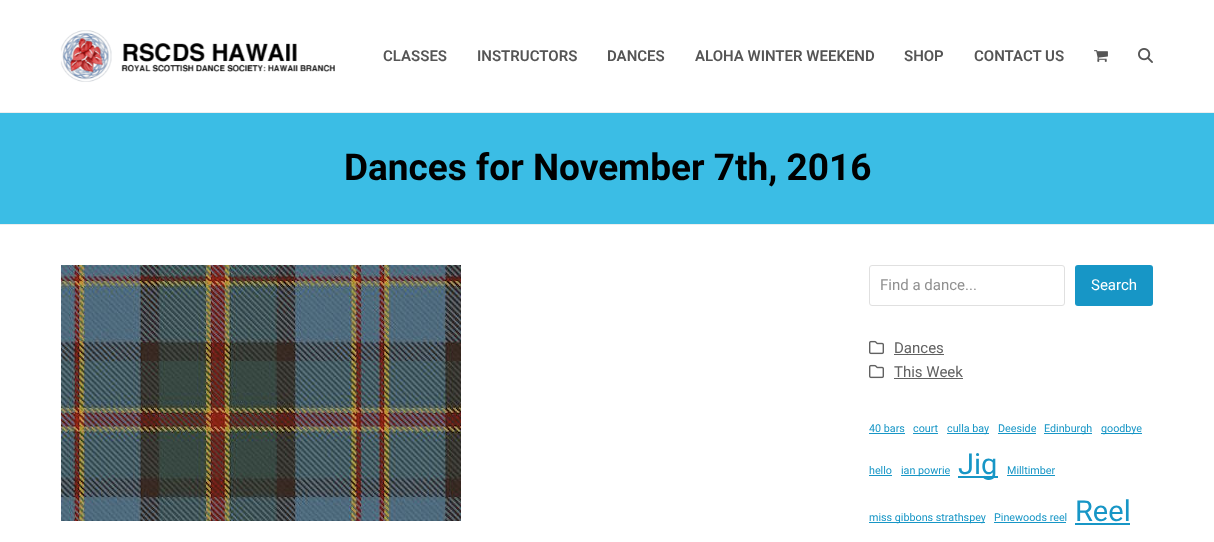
<svg xmlns="http://www.w3.org/2000/svg" width="1214" height="542" viewBox="0 0 1214 542">
  <rect width="100%" height="100%" fill="#fff"/>
  <image x="60" y="30" width="275" height="52" href="img/1.png"/>
  <image x="1094" y="50" width="14" height="12" href="img/2.png"/>
  <image x="1138" y="48" width="15" height="15" href="img/3.png"/>
  <path d="M0 113h1214v111H0z" fill="#3bbde5"/>
  <path d="M0 112h1214v1H0z" fill="#eee"/>
  <path d="M0 224h1214v1H0z" fill="#eee"/>
  <image x="61" y="265" width="400" height="256" href="img/4.png"/>
  <rect x="869.5" y="265.5" width="195" height="40" rx="2.5" fill="none" stroke="#e0e0e0"/>
  <rect x="1075" y="265" width="78" height="41" rx="3" fill="#1796c6"/>
  <image x="869" y="340" width="15" height="15" href="img/5.png"/>
  <path d="M894 354h50v1H894z" fill="#616161"/>
  <image x="869" y="364" width="15" height="15" href="img/5.png"/>
  <path d="M894 378h69v1H894z" fill="#616161"/>
  <path d="M869 433h36v1H869z" fill="#1796c6"/>
  <path d="M913 433h25v1H913z" fill="#1796c6"/>
  <path d="M947 433h42v1H947z" fill="#1796c6"/>
  <path d="M998 433h38v1H998z" fill="#1796c6"/>
  <path d="M1044 433h48v1H1044z" fill="#1796c6"/>
  <path d="M1101 433h41v1H1101z" fill="#1796c6"/>
  <path d="M869 475h23v1H869z" fill="#1796c6"/>
  <path d="M901 475h49v1H901z" fill="#1796c6"/>
  <path d="M958 476h40v2H958z" fill="#1796c6"/>
  <path d="M1007 475h48v1H1007z" fill="#1796c6"/>
  <path d="M869 522h116v1H869z" fill="#1796c6"/>
  <path d="M994 522h72v1H994z" fill="#1796c6"/>
  <path d="M1075 523h55v2H1075z" fill="#1796c6"/>
  <g font-family="Roboto" font-size="15" font-weight="600" fill="#555">
    <text x="383" y="61">CLASSES</text>
    <text x="477" y="61">INSTRUCTORS</text>
    <text x="607" y="61">DANCES</text>
    <text x="695" y="61">ALOHA WINTER WEEKEND</text>
    <text x="904" y="61">SHOP</text>
    <text x="974" y="61">CONTACT US</text>
  </g>
  <text x="344" y="180" font-family="Roboto" font-size="37" font-weight="bold" fill="#000">Dances for November 7th, 2016</text>
  <text x="880" y="290" font-family="Roboto" font-size="15" fill="#909090">Find a dance...</text>
  <text x="1091" y="290" font-family="Roboto" font-size="15" fill="#fff">Search</text>
  <g font-family="Roboto" font-size="15" fill="#616161">
    <text x="894" y="353">Dances</text>
    <text x="894" y="377">This Week</text>
  </g>
  <g font-family="Roboto" font-size="10.75" fill="#1796c6">
    <text x="869" y="432">40 bars</text>
    <text x="913" y="432">court</text>
    <text x="947" y="432">culla bay</text>
    <text x="998" y="432">Deeside</text>
    <text x="1044" y="432">Edinburgh</text>
    <text x="1101" y="432">goodbye</text>
    <text x="869" y="474">hello</text>
    <text x="901" y="474">ian powrie</text>
  </g>
  <text x="958" y="474" font-family="Roboto" font-size="29" fill="#1796c6">Jig</text>
  <g font-family="Roboto" font-size="10.75" fill="#1796c6">
    <text x="1007" y="474">Milltimber</text>
    <text x="869" y="521">miss gibbons strathspey</text>
    <text x="994" y="521">Pinewoods reel</text>
  </g>
  <text x="1075" y="521" font-family="Roboto" font-size="29" fill="#1796c6">Reel</text>
</svg>
